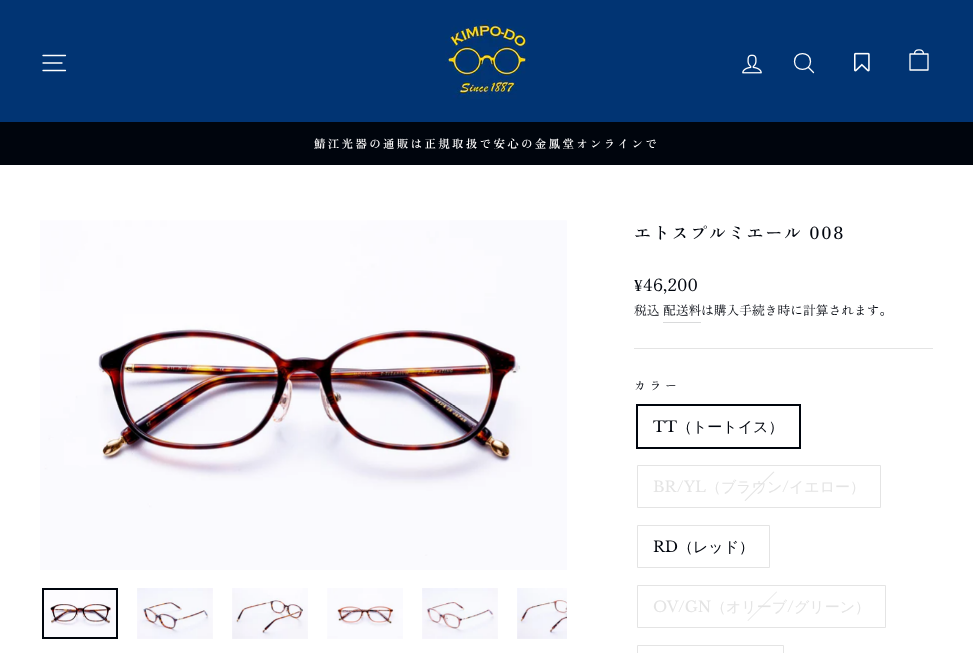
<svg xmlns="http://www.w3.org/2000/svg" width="973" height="653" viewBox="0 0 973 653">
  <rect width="100%" height="100%" fill="#fff"/>
  <path d="M0 0h973v122H0z" fill="#013473"/>
  <path d="M43 55.5H65.5M43 63H62M43 70.5H65.5" fill="none" stroke="#fff" stroke-width="1.3" stroke-linecap="round" stroke-linejoin="round"/>
  <image x="445" y="19" width="84" height="80" href="img/1.png"/>
  <image x="742" y="54" width="20" height="20" href="img/2.png"/>
  <path d="M810.5 61.5C810.5 72 794.5 72 794.5 61.5C794.5 51 810.5 51 810.5 61.5ZM813.5 72.5L808.5 67.5" fill="none" stroke="#fff" stroke-width="1.3" stroke-linecap="round" stroke-linejoin="round"/>
  <image x="854" y="52" width="16" height="20" href="img/3.png"/>
  <path d="M910 54H928V70H910ZM914.5 54C914.5 48.5 923.5 48.5 923.5 54" fill="none" stroke="#fff" stroke-width="1.3" stroke-linecap="round" stroke-linejoin="round"/>
  <path d="M0 122h973v43H0z" fill="#00050d"/>
  <image x="40" y="220" width="527" height="350" href="img/4.png"/>
  <image x="44" y="590" width="72" height="47" href="img/5.png"/>
  <path d="M43 589h74v49H43z" fill="none" stroke="#00050d" stroke-width="2"/>
  <image x="137" y="588" width="76" height="51" href="img/6.png"/>
  <image x="232" y="588" width="76" height="51" href="img/7.png"/>
  <image x="327" y="588" width="76" height="51" href="img/8.png"/>
  <image x="422" y="588" width="76" height="51" href="img/9.png"/>
  <image x="517" y="588" width="50" height="51" href="img/10.png"/>
  <path d="M663 322h38v1H663z" fill="#d9dadb"/>
  <path d="M634 348h299v1H634z" fill="#e4e4e4"/>
  <path d="M637 405h163v43H637z" fill="none" stroke="#00050d" stroke-width="2"/>
  <path d="M637.5 465.5h243v42H637.5z" fill="none" stroke="#e4e4e4"/>
  <path d="M773.5 471.5L774.5 472L745.5 501L744.5 500.5Z" fill="#e4e4e4"/>
  <path d="M637.5 525.5h132v42H637.5z" fill="none" stroke="#e4e4e4"/>
  <path d="M637.5 585.5h248v42H637.5z" fill="none" stroke="#e4e4e4"/>
  <path d="M776.5 591.5L777 592L748 621L747.5 620.5Z" fill="#e4e4e4"/>
  <path d="M637.5 645.5h146v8H637.5z" fill="none" stroke="#e4e4e4"/>
  <text x="314" y="148" font-family="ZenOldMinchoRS" font-size="11.5" font-weight="bold" letter-spacing="2.3" fill="#fff">鯖江光器の通販は正規取扱で安心の金鳳堂オンラインで</text>
  <text x="634" y="239" font-family="ZenOldMinchoRS" font-size="17" font-weight="bold" letter-spacing="1.75" fill="#00050d">エトスプルミエール 008</text>
  <text x="634" y="291" font-family="Liberation Serif" font-size="17" fill="#00050d">¥</text>
  <text x="643" y="291" font-family="ZenOldMinchoRS" font-size="17" fill="#00050d">46,200</text>
  <g font-family="ZenOldMinchoRS" font-size="12.75" fill="#00050d">
    <text x="634" y="315">税込 配送料</text>
    <text x="701" y="315">は購入手続き時に計算されます。</text>
  </g>
  <text x="634" y="390" font-family="ZenOldMinchoRS" font-size="12" letter-spacing="3.5" fill="#00050d">カラー</text>
  <text x="653" y="432" font-family="Libre Baskerville" font-size="15" fill="#00050d">TT</text>
  <text x="677" y="432" font-family="WenQuanYi Zen Hei" font-size="15" font-weight="500" fill="#00050d">（トートイス）</text>
  <text x="653" y="492" font-family="Libre Baskerville" font-size="15" fill="#e4e4e4">BR/YL</text>
  <text x="706" y="492" font-family="WenQuanYi Zen Hei" font-size="15" font-weight="500" fill="#e4e4e4">（ブラウン</text>
  <text x="782" y="492" font-family="Libre Baskerville" font-size="15" fill="#e4e4e4">/</text>
  <text x="789" y="492" font-family="WenQuanYi Zen Hei" font-size="15" font-weight="500" fill="#e4e4e4">イエロー）</text>
  <text x="653" y="552" font-family="Libre Baskerville" font-size="15" fill="#00050d">RD</text>
  <text x="678" y="552" font-family="WenQuanYi Zen Hei" font-size="15" font-weight="500" fill="#00050d">（レッド）</text>
  <text x="653" y="612" font-family="Libre Baskerville" font-size="15" fill="#e4e4e4">OV/GN</text>
  <text x="711" y="612" font-family="WenQuanYi Zen Hei" font-size="15" font-weight="500" fill="#e4e4e4">（オリーブ</text>
  <text x="787" y="612" font-family="Libre Baskerville" font-size="15" fill="#e4e4e4">/</text>
  <text x="794" y="612" font-family="WenQuanYi Zen Hei" font-size="15" font-weight="500" fill="#e4e4e4">グリーン）</text>
</svg>
